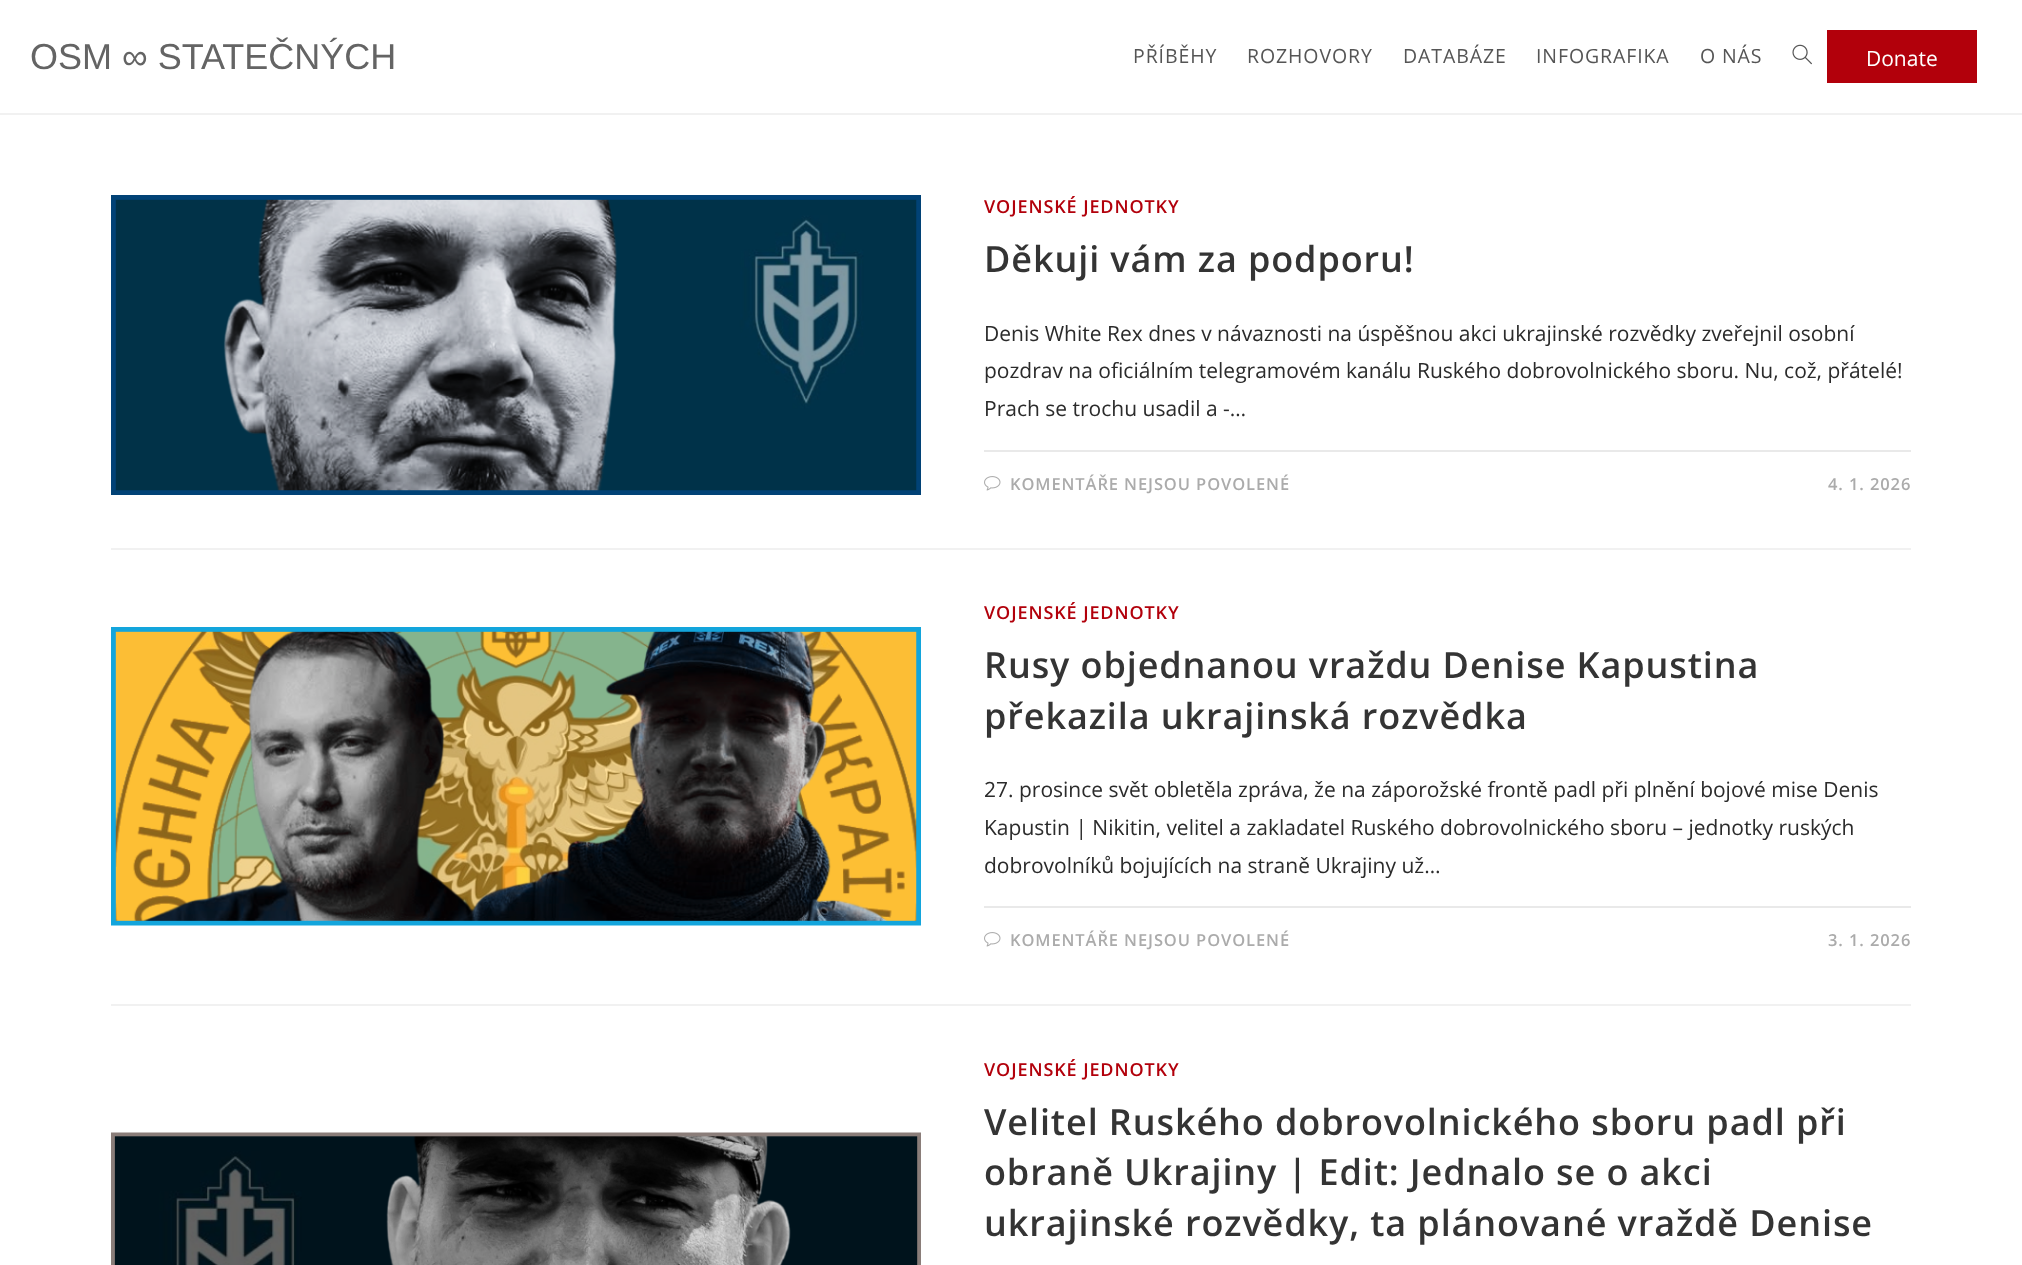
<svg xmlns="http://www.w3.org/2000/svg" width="2022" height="1265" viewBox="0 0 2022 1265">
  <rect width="100%" height="100%" fill="#fff"/>
  <path d="M0 113h2022v2H0z" fill="#f1f1f1"/>
  <image x="1792" y="44" width="20" height="21" href="img/1.png"/>
  <path d="M1827 30h150v53H1827z" fill="#b2000b"/>
  <path d="M111 548h1800v2H111z" fill="#f1f1f1"/>
  <image x="111" y="195" width="810" height="300" href="img/2.png"/>
  <path d="M984 450h927v2H984z" fill="#e9e9e9"/>
  <image x="984" y="476" width="17" height="15" href="img/3.png"/>
  <path d="M111 1004h1800v2H111z" fill="#f1f1f1"/>
  <image x="111" y="627" width="810" height="299" href="img/4.png"/>
  <path d="M984 906h927v2H984z" fill="#e9e9e9"/>
  <image x="984" y="932" width="17" height="15" href="img/3.png"/>
  <image x="111" y="1132" width="810" height="133" href="img/5.png"/>
  <text x="30" y="69" font-family="Liberation Sans" font-size="36" fill="#646464">OSM ∞ STATEČNÝCH</text>
  <g font-family="Open Sans" font-size="19.5" letter-spacing="0.9" fill="#555">
    <text x="1133" y="63">PŘÍBĚHY</text>
    <text x="1247" y="63">ROZHOVORY</text>
    <text x="1403" y="63">DATABÁZE</text>
    <text x="1536" y="63">INFOGRAFIKA</text>
    <text x="1700" y="63">O NÁS</text>
  </g>
  <text x="1866" y="66" font-family="Open Sans" font-size="21" fill="#fff">Donate</text>
  <text x="984" y="213" font-family="Open Sans" font-size="18" font-weight="600" letter-spacing="0.9" fill="#b2000b">VOJENSKÉ JEDNOTKY</text>
  <text x="984" y="272" font-family="Open Sans" font-size="36" font-weight="600" letter-spacing="0.9" fill="#343434">Děkuji vám za podporu!</text>
  <g font-family="Open Sans" font-size="21" fill="#2b2b2b">
    <text x="984" y="341">Denis White Rex dnes v návaznosti na úspěšnou akci ukrajinské rozvědky zveřejnil osobní</text>
    <text x="984" y="378">pozdrav na oficiálním telegramovém kanálu Ruského dobrovolnického sboru. Nu, což, přátelé!</text>
    <text x="984" y="416">Prach se trochu usadil a -…</text>
  </g>
  <g font-family="Open Sans" font-size="16.5" font-weight="600" letter-spacing="0.9" fill="#ababab">
    <text x="1010" y="490">KOMENTÁŘE NEJSOU POVOLENÉ</text>
    <text x="1828" y="490">4. 1. 2026</text>
  </g>
  <text x="984" y="619" font-family="Open Sans" font-size="18" font-weight="600" letter-spacing="0.9" fill="#b2000b">VOJENSKÉ JEDNOTKY</text>
  <g font-family="Open Sans" font-size="36" font-weight="600" letter-spacing="0.9" fill="#343434">
    <text x="984" y="678">Rusy objednanou vraždu Denise Kapustina</text>
    <text x="984" y="729">překazila ukrajinská rozvědka</text>
  </g>
  <g font-family="Open Sans" font-size="21" fill="#2b2b2b">
    <text x="984" y="797">27. prosince svět obletěla zpráva, že na záporožské frontě padl při plnění bojové mise Denis</text>
    <text x="984" y="835">Kapustin | Nikitin, velitel a zakladatel Ruského dobrovolnického sboru – jednotky ruských</text>
    <text x="984" y="873">dobrovolníků bojujících na straně Ukrajiny už…</text>
  </g>
  <g font-family="Open Sans" font-size="16.5" font-weight="600" letter-spacing="0.9" fill="#ababab">
    <text x="1010" y="946">KOMENTÁŘE NEJSOU POVOLENÉ</text>
    <text x="1828" y="946">3. 1. 2026</text>
  </g>
  <text x="984" y="1076" font-family="Open Sans" font-size="18" font-weight="600" letter-spacing="0.9" fill="#b2000b">VOJENSKÉ JEDNOTKY</text>
  <g font-family="Open Sans" font-size="36" font-weight="600" letter-spacing="0.9" fill="#343434">
    <text x="984" y="1135">Velitel Ruského dobrovolnického sboru padl při</text>
    <text x="984" y="1185">obraně Ukrajiny | Edit: Jednalo se o akci</text>
    <text x="984" y="1236">ukrajinské rozvědky, ta plánované vraždě Denise</text>
  </g>
</svg>
